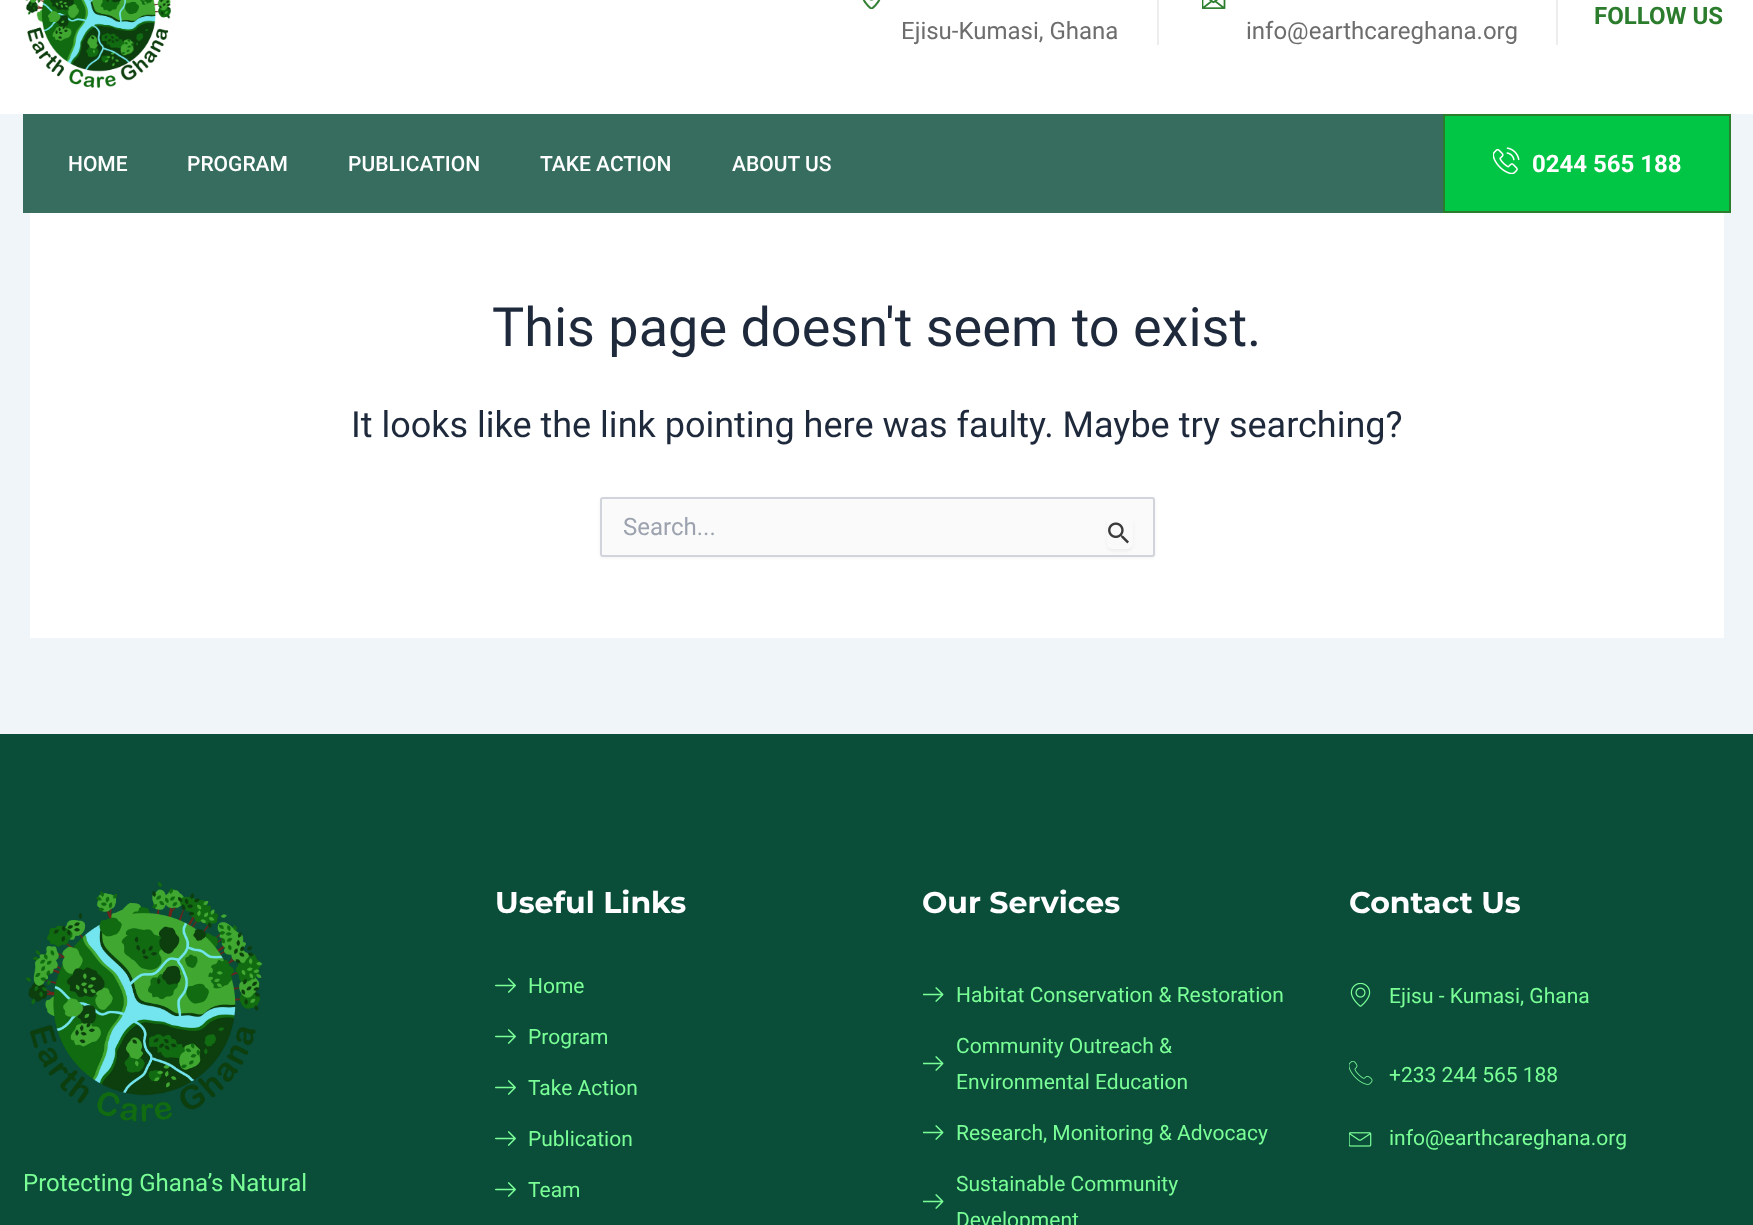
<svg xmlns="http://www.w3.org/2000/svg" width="1753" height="1225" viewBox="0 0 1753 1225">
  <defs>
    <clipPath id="clip1"><path d="M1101 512H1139V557H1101ZM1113 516H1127C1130.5 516 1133 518.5 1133 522V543C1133 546.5 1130.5 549 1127 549H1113C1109.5 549 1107 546.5 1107 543V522C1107 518.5 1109.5 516 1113 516Z" clip-rule="evenodd"/></clipPath>
  </defs>
  <rect width="100%" height="100%" fill="#f0f5fa"/>
  <path d="M23 114h1420v99H23z" fill="#366d5e"/>
  <path d="M0 0h1753v114H0z" fill="#fff"/>
  <image x="25" y="0" width="146" height="88" href="img/1.png"/>
  <image x="862" y="0" width="19" height="9" href="img/2.png"/>
  <path d="M1556 0h2v45H1556z" fill="#ededed"/>
  <path d="M1157 0h2v45H1157z" fill="#ededed"/>
  <image x="1202" y="0" width="24" height="9" href="img/3.png"/>
  <path d="M1444 115h286v97H1444z" fill="#01c545" stroke="#2b7c2d" stroke-width="2"/>
  <image x="1493" y="147" width="27" height="27" href="img/4.png"/>
  <path d="M30 213h1694v425H30z" fill="#fff"/>
  <path d="M30 210h1413v3H30z" fill="#396f5f"/>
  <rect x="600" y="498" width="555" height="60" rx="3" fill="#0000000d" filter="blur(1.5px)"/>
  <rect x="601" y="498" width="553" height="58" rx="2" fill="#fafafa" stroke="#d1d5db" stroke-width="2"/>
  <g clip-path="url(#clip1)">
    <rect x="1107" y="518" width="26" height="33" rx="6" fill="#0000000d" filter="blur(1.5px)"/>
  </g>
  <image x="1108" y="522" width="21" height="22" href="img/5.png"/>
  <path d="M0 734h1753v491H0z" fill="#0a4d39"/>
  <image x="495" y="978" width="21" height="15" href="img/6.png"/>
  <image x="495" y="1029" width="21" height="15" href="img/6.png"/>
  <image x="495" y="1080" width="21" height="15" href="img/6.png"/>
  <image x="495" y="1131" width="21" height="15" href="img/6.png"/>
  <image x="495" y="1182" width="21" height="15" href="img/6.png"/>
  <image x="923" y="987" width="21" height="15" href="img/7.png"/>
  <image x="923" y="1056" width="21" height="15" href="img/7.png"/>
  <image x="923" y="1125" width="21" height="15" href="img/7.png"/>
  <image x="923" y="1194" width="21" height="15" href="img/7.png"/>
  <image x="1350" y="983" width="21" height="24" href="img/8.png"/>
  <image x="1349" y="1061" width="24" height="24" href="img/9.png"/>
  <image x="1349" y="1132" width="23" height="15" href="img/10.png"/>
  <image x="26" y="882" width="237" height="240" href="img/11.png"/>
  <text x="1594" y="24" font-family="Roboto" font-size="24" font-weight="bold" fill="#2b7c2d">FOLLOW US</text>
  <g font-family="Roboto" font-size="24" fill="#6d6d6d">
    <text x="901" y="39">Ejisu-Kumasi, Ghana</text>
    <text x="1246" y="39">info@earthcareghana.org</text>
  </g>
  <g font-family="Roboto" font-size="21" font-weight="500" fill="#fff">
    <text x="68" y="171">HOME</text>
    <text x="187" y="171">PROGRAM</text>
    <text x="348" y="171">PUBLICATION</text>
    <text x="540" y="171">TAKE ACTION</text>
    <text x="732" y="171">ABOUT US</text>
  </g>
  <text x="1532" y="172" font-family="Roboto" font-size="24" font-weight="bold" fill="#fff">0244 565 188</text>
  <text x="492" y="346" font-family="Roboto" font-size="54" fill="#1e293b">This page doesn't seem to exist.</text>
  <text x="351" y="437" font-family="Roboto" font-size="36" fill="#1e293b">It looks like the link pointing here was faulty. Maybe try searching?</text>
  <text x="623" y="535" font-family="Roboto" font-size="24" fill="#9ca3af">Search...</text>
  <text x="495" y="913" font-family="Montserrat" font-size="30" font-weight="bold" fill="#fff">Useful Links</text>
  <g font-family="Roboto" font-size="21" fill="#7aff97">
    <text x="528" y="993">Home</text>
    <text x="528" y="1044">Program</text>
    <text x="528" y="1095">Take Action</text>
    <text x="528" y="1146">Publication</text>
    <text x="528" y="1197">Team</text>
  </g>
  <text x="922" y="913" font-family="Montserrat" font-size="30" font-weight="bold" fill="#fff">Our Services</text>
  <g font-family="Roboto" font-size="21" fill="#7aff97">
    <text x="956" y="1002">Habitat Conservation &amp; Restoration</text>
    <text x="956" y="1053">Community Outreach &amp;</text>
    <text x="956" y="1089">Environmental Education</text>
    <text x="956" y="1140">Research, Monitoring &amp; Advocacy</text>
    <text x="956" y="1191">Sustainable Community</text>
    <text x="956" y="1227">Development</text>
  </g>
  <text x="1349" y="913" font-family="Montserrat" font-size="30" font-weight="bold" fill="#fff">Contact Us</text>
  <g font-family="Roboto" font-size="21" fill="#7aff97">
    <text x="1389" y="1003">Ejisu - Kumasi, Ghana</text>
    <text x="1389" y="1082">+233 244 565 188</text>
    <text x="1389" y="1145">info@earthcareghana.org</text>
  </g>
  <text x="23" y="1191" font-family="Roboto" font-size="24" fill="#7aff97">Protecting Ghana’s Natural</text>
</svg>
